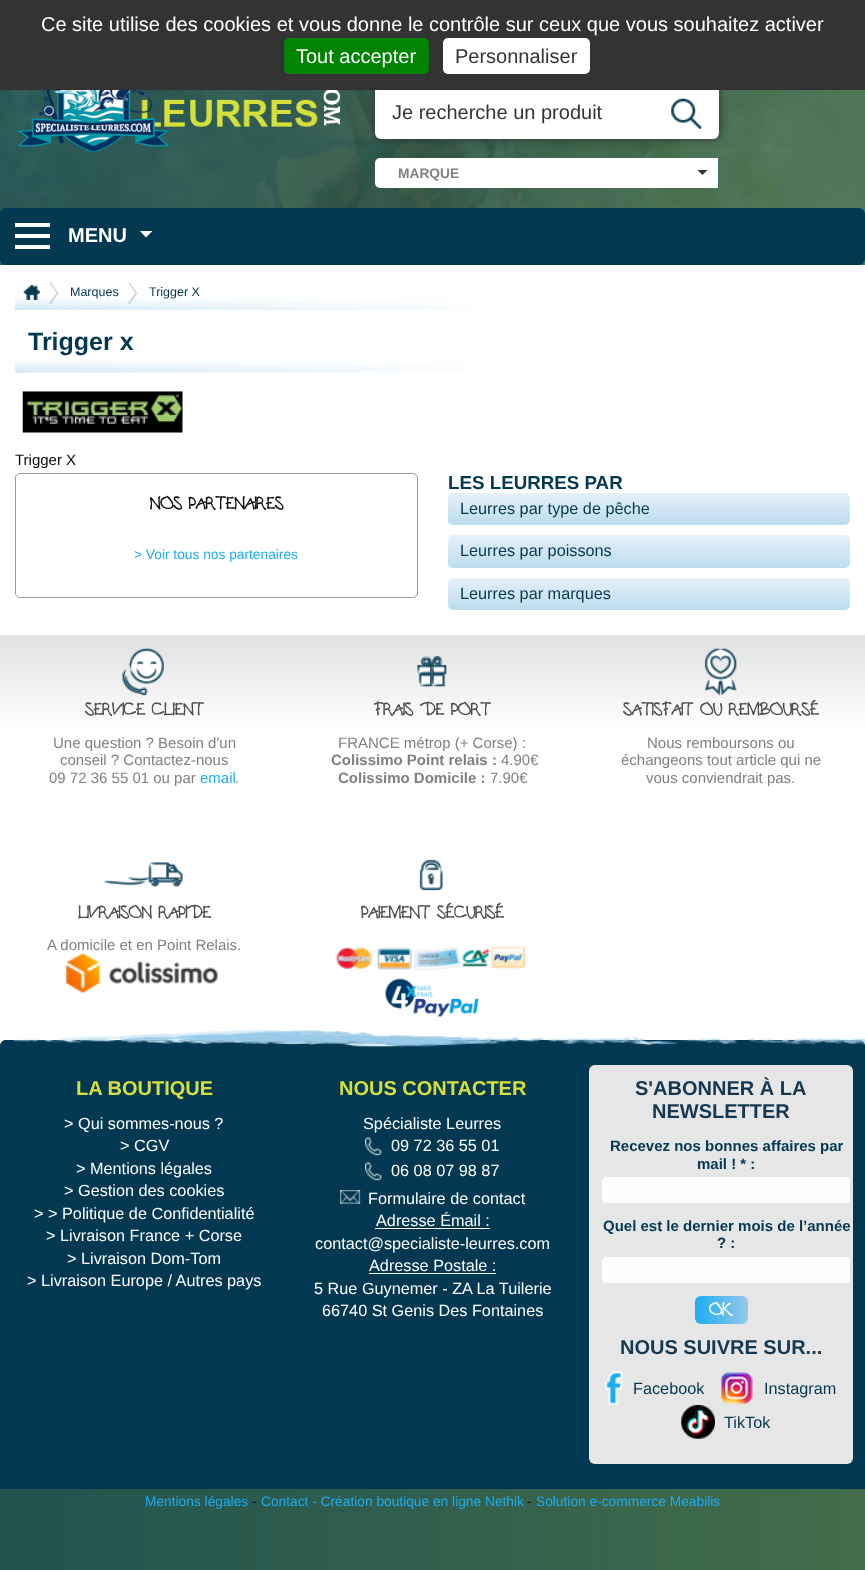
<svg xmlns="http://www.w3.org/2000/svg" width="865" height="1570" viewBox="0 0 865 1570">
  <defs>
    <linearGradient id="g1" gradientUnits="userSpaceOnUse" x1="649" y1="493" x2="649" y2="525"><stop offset="0" stop-color="#e5f1f9"/><stop offset="1" stop-color="#bddcf0"/></linearGradient>
    <linearGradient id="g2" gradientUnits="userSpaceOnUse" x1="649" y1="535" x2="649" y2="568"><stop offset="0" stop-color="#e5f1f9"/><stop offset="1" stop-color="#bddcf0"/></linearGradient>
    <linearGradient id="g3" gradientUnits="userSpaceOnUse" x1="649" y1="578" x2="649" y2="610"><stop offset="0" stop-color="#e5f1f9"/><stop offset="1" stop-color="#bddcf0"/></linearGradient>
    <linearGradient id="g4" gradientUnits="userSpaceOnUse" x1="433" y1="635" x2="433" y2="1040"><stop offset="0" stop-color="#e0e1e2"/><stop offset="0.24" stop-color="#fff"/></linearGradient>
    <linearGradient id="g5" gradientUnits="userSpaceOnUse" x1="695" y1="1310" x2="748" y2="1310"><stop offset="0" stop-color="#1dacf1"/><stop offset="1" stop-color="#94c9e8"/></linearGradient>
  </defs>
  <rect width="100%" height="100%" fill="#fff"/>
  <image x="0" y="90" width="865" height="1480" href="img/1.png"/>
  <image x="0" y="90" width="865" height="175" href="img/2.png"/>
  <rect x="375" y="85" width="344" height="54" rx="6" fill="#333" filter="blur(5px)"/>
  <rect x="375" y="85" width="344" height="54" rx="6" fill="#fff"/>
  <path d="M0 0h865v90H0z" fill="#333"/>
  <rect x="284" y="38" width="145" height="36" rx="5" fill="#008300"/>
  <rect x="443" y="38" width="147" height="36" rx="5" fill="#fff"/>
  <image x="16" y="90" width="324" height="63" href="img/3.png"/>
  <image x="671" y="98" width="31" height="31" href="img/4.png"/>
  <rect x="375" y="158" width="343" height="30" rx="5" fill="#fff"/>
  <path d="M697.5 170H707.5L702.5 175Z" fill="#333"/>
  <path d="M713 158h5v30H713z" fill="#fff"/>
  <rect y="208" width="865" height="57" rx="6" fill="#023852"/>
  <path d="M15 245h35v4H15z" fill="#fefefe"/>
  <path d="M15 234h35v4H15z" fill="#fefefe"/>
  <path d="M15 223h35v4H15z" fill="#fefefe"/>
  <path d="M140 231H152.5L146 237.5Z" fill="#fff"/>
  <path d="M0 265h865v370H0z" fill="#fff"/>
  <image x="23" y="285" width="17" height="15" href="img/5.png"/>
  <image x="50" y="282" width="9" height="22" href="img/6.png"/>
  <image x="128" y="282" width="10" height="22" href="img/7.png"/>
  <image x="15" y="361" width="454" height="12" href="img/9.png"/>
  <image x="22" y="391" width="161" height="42" href="img/10.png"/>
  <rect x="15.5" y="473.5" width="402" height="124" rx="4.5" fill="none" stroke="#999"/>
  <rect x="448" y="493" width="402" height="32" rx="5" fill="url(#g1)"/>
  <rect x="448" y="535" width="402" height="33" rx="5" fill="url(#g2)"/>
  <rect x="448" y="578" width="402" height="32" rx="5" fill="url(#g3)"/>
  <path d="M0 635h865v405H0z" fill="url(#g4)"/>
  <image x="122" y="648" width="42" height="48" href="img/11.png"/>
  <image x="417" y="656" width="30" height="31" href="img/12.png"/>
  <image x="704" y="648" width="33" height="48" href="img/13.png"/>
  <image x="103" y="862" width="80" height="25" href="img/14.png"/>
  <image x="66" y="953" width="152" height="40" href="img/15.png"/>
  <image x="419" y="859" width="24" height="32" href="img/16.png"/>
  <image x="336" y="946" width="190" height="24" href="img/17.png"/>
  <image x="384" y="978" width="95" height="39" href="img/18.png"/>
  <path d="M0 1040h865v6H0z" fill="#fff"/>
  <path d="M6 1040H859C862.5 1040 865 1042.5 865 1046V1489H0V1046C0 1042.5 2.5 1040 6 1040Z" fill="#023852"/>
  <image x="13" y="1030" width="852" height="17" href="img/19.png"/>
  <image x="365" y="1137" width="17" height="19" href="img/20.png"/>
  <image x="365" y="1162" width="17" height="19" href="img/21.png"/>
  <image x="340" y="1190" width="21" height="14" href="img/22.png"/>
  <path d="M375 1228h115v1H375z" fill="#fff"/>
  <path d="M369 1273h127v1H369z" fill="#fff"/>
  <rect x="589" y="1065" width="264" height="399" rx="6" fill="#e6e6e6"/>
  <rect x="601.5" y="1176.5" width="249" height="27" rx="4.5" fill="#fefefe" stroke="#e6e6e6"/>
  <rect x="601.5" y="1256.5" width="249" height="27" rx="4.5" fill="#fefefe" stroke="#e6e6e6"/>
  <rect x="695" y="1296" width="53" height="28" rx="6" fill="url(#g5)"/>
  <image x="605" y="1371" width="18" height="34" href="img/23.png"/>
  <image x="721" y="1372" width="32" height="32" href="img/24.png"/>
  <image x="681" y="1405" width="34" height="34" href="img/25.png"/>
  <g font-family="Liberation Sans" font-size="20" fill="#fff">
    <text x="41" y="31">Ce site utilise des cookies et vous donne le contrôle sur ceux que vous souhaitez activer</text>
    <text x="296" y="63">Tout accepter</text>
  </g>
  <g font-family="Liberation Sans" font-size="20" fill="#333">
    <text x="455" y="63">Personnaliser</text>
    <text x="392" y="119">Je recherche un produit</text>
  </g>
  <text x="398" y="178" font-family="Liberation Sans" font-size="13.75" font-weight="bold" fill="#808080">MARQUE</text>
  <text x="68" y="242" font-family="Liberation Sans" font-size="20" font-weight="bold" fill="#fff">MENU</text>
  <g font-family="Liberation Sans" font-size="12.5" fill="#023852">
    <text x="70" y="296">Marques</text>
    <text x="149" y="296">Trigger X</text>
  </g>
  <image x="15" y="297" width="459" height="13" href="img/8.png"/>
  <text x="28" y="350" font-family="Liberation Sans" font-size="25" font-weight="bold" fill="#023852">Trigger x</text>
  <text x="15" y="465" font-family="Liberation Sans" font-size="15" fill="#0a0a0a">Trigger X</text>
  <text x="150" y="509" font-family="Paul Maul" font-size="20" font-weight="bold" fill="#0a0a0a">NOS PARTENAIRES</text>
  <text x="134" y="559" font-family="Liberation Sans" font-size="13.75" fill="#1dacf1">&gt; Voir tous nos partenaires</text>
  <text x="448" y="489" font-family="Liberation Sans" font-size="18.75" font-weight="bold" fill="#023852">LES LEURRES PAR</text>
  <g font-family="Liberation Sans" font-size="16.25" fill="#023852">
    <text x="460" y="514">Leurres par type de pêche</text>
    <text x="460" y="556">Leurres par poissons</text>
    <text x="460" y="599">Leurres par marques</text>
  </g>
  <text x="85" y="715" font-family="Paul Maul" font-size="20" font-weight="bold" fill="#4d4d4d">SERVICE CLIENT</text>
  <g font-family="Liberation Sans" font-size="15" fill="#808080">
    <text x="53" y="748">Une question ? Besoin d'un</text>
    <text x="60" y="765">conseil ? Contactez-nous</text>
    <text x="49" y="783">09 72 36 55 01 ou par</text>
  </g>
  <text x="200" y="783" font-family="Liberation Sans" font-size="15" fill="#1dacf1">email</text>
  <text x="235" y="783" font-family="Liberation Sans" font-size="15" fill="#808080">.</text>
  <text x="374" y="715" font-family="Paul Maul" font-size="20" font-weight="bold" fill="#4d4d4d">FRAIS DE PORT</text>
  <text x="338" y="748" font-family="Liberation Sans" font-size="15" fill="#808080">FRANCE métrop (+ Corse) :</text>
  <text x="331" y="765" font-family="Liberation Sans" font-size="15" font-weight="bold" fill="#808080">Colissimo Point relais :</text>
  <text x="501" y="765" font-family="Liberation Sans" font-size="15" fill="#808080">4.90€</text>
  <text x="338" y="783" font-family="Liberation Sans" font-size="15" font-weight="bold" fill="#808080">Colissimo Domicile :</text>
  <text x="490" y="783" font-family="Liberation Sans" font-size="15" fill="#808080">7.90€</text>
  <text x="623" y="715" font-family="Paul Maul" font-size="20" font-weight="bold" fill="#4d4d4d">SATISFAIT OU REMBOURSÉ</text>
  <g font-family="Liberation Sans" font-size="15" fill="#808080">
    <text x="647" y="748">Nous remboursons ou</text>
    <text x="621" y="765">échangeons tout article qui ne</text>
    <text x="646" y="783">vous conviendrait pas.</text>
  </g>
  <text x="78" y="918" font-family="Paul Maul" font-size="20" font-weight="bold" fill="#4d4d4d">LIVRAISON RAPIDE</text>
  <text x="47" y="950" font-family="Liberation Sans" font-size="15" fill="#808080">A domicile et en Point Relais.</text>
  <text x="361" y="918" font-family="Paul Maul" font-size="20" font-weight="bold" fill="#4d4d4d">PAIEMENT SÉCURISÉ</text>
  <text x="76" y="1095" font-family="Liberation Sans" font-size="20" font-weight="bold" fill="#d6e03c">LA BOUTIQUE</text>
  <g font-family="Liberation Sans" font-size="16.25" fill="#fff">
    <text x="64" y="1129">&gt; Qui sommes-nous ?</text>
    <text x="120" y="1151">&gt; CGV</text>
    <text x="76" y="1174">&gt; Mentions légales</text>
    <text x="64" y="1196">&gt; Gestion des cookies</text>
    <text x="34" y="1219">&gt; &gt; Politique de Confidentialité</text>
    <text x="46" y="1241">&gt; Livraison France + Corse</text>
    <text x="67" y="1264">&gt; Livraison Dom-Tom</text>
    <text x="27" y="1286">&gt; Livraison Europe / Autres pays</text>
  </g>
  <text x="339" y="1095" font-family="Liberation Sans" font-size="20" font-weight="bold" fill="#d6e03c">NOUS CONTACTER</text>
  <g font-family="Liberation Sans" font-size="16.25" fill="#fff">
    <text x="363" y="1129">Spécialiste Leurres</text>
    <text x="391" y="1151">09 72 36 55 01</text>
    <text x="391" y="1176">06 08 07 98 87</text>
    <text x="368" y="1204">Formulaire de contact</text>
    <text x="376" y="1226">Adresse Émail :</text>
    <text x="315" y="1249">contact@specialiste-leurres.com</text>
    <text x="369" y="1271">Adresse Postale :</text>
    <text x="314" y="1294">5 Rue Guynemer - ZA La Tuilerie</text>
    <text x="322" y="1316">66740 St Genis Des Fontaines</text>
  </g>
  <g font-family="Liberation Sans" font-size="20" font-weight="bold" fill="#143852">
    <text x="635" y="1095">S'ABONNER À LA</text>
    <text x="652" y="1118">NEWSLETTER</text>
  </g>
  <g font-family="Liberation Sans" font-size="15" font-weight="bold" fill="#023852">
    <text x="610" y="1151">Recevez nos bonnes affaires par</text>
    <text x="697" y="1169">mail ! * :</text>
    <text x="603" y="1231">Quel est le dernier mois de l’année</text>
    <text x="717" y="1248">? :</text>
  </g>
  <text x="709" y="1315" font-family="Paul Maul" font-size="20" font-weight="bold" fill="#fff">OK</text>
  <text x="620" y="1354" font-family="Liberation Sans" font-size="20" font-weight="bold" fill="#143852">NOUS SUIVRE SUR...</text>
  <g font-family="Liberation Sans" font-size="16.25" fill="#023852">
    <text x="633" y="1394">Facebook</text>
    <text x="764" y="1394">Instagram</text>
    <text x="724" y="1428">TikTok</text>
  </g>
  <text x="145" y="1506" font-family="Liberation Sans" font-size="13.75" fill="#1dacf1">Mentions légales</text>
  <text x="252" y="1506" font-family="Liberation Sans" font-size="13.75" fill="#0a0a0a">-</text>
  <text x="261" y="1506" font-family="Liberation Sans" font-size="13.75" fill="#1dacf1">Contact - Création boutique en ligne Nethik</text>
  <text x="527" y="1506" font-family="Liberation Sans" font-size="13.75" fill="#0a0a0a">-</text>
  <text x="536" y="1506" font-family="Liberation Sans" font-size="13.75" fill="#1dacf1">Solution e-commerce Meabilis</text>
</svg>
